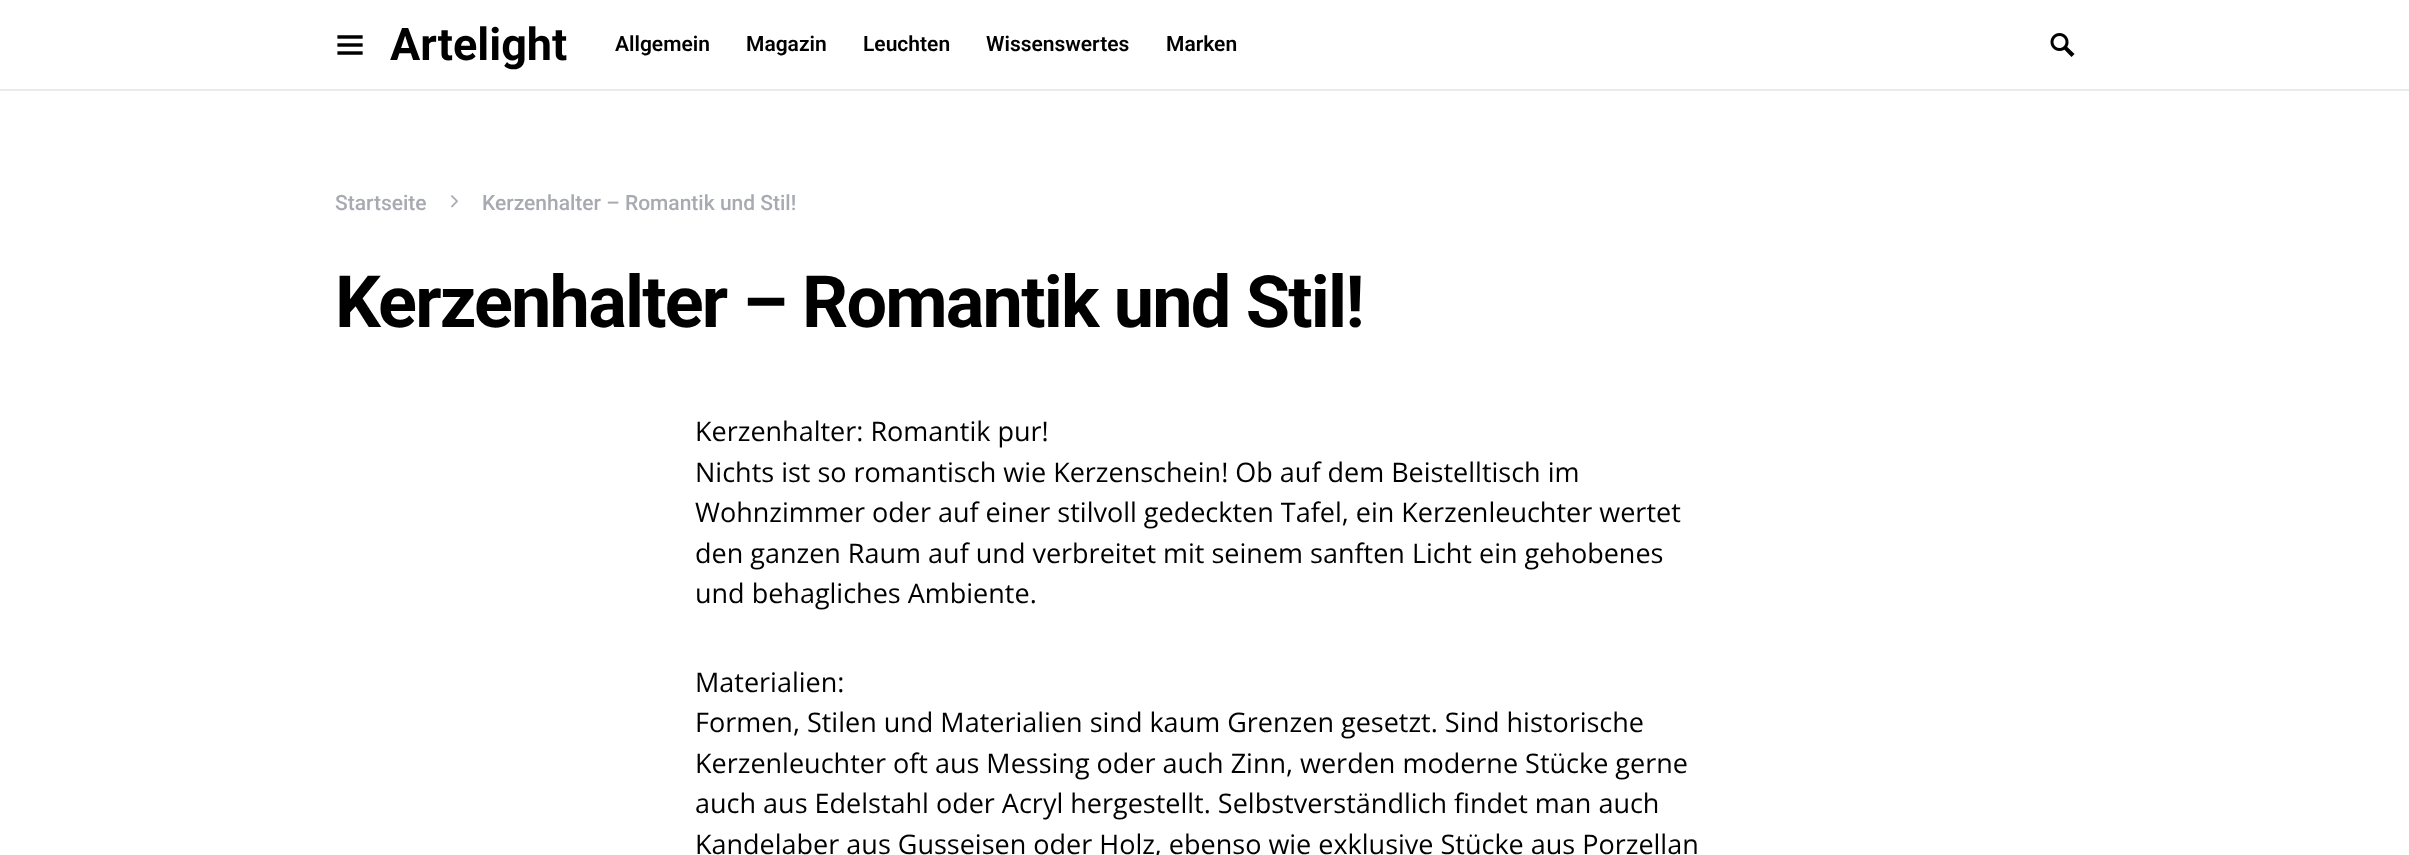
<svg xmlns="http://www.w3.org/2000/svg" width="2409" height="855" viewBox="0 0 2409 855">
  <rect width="100%" height="100%" fill="#fff"/>
  <path d="M0 89h2409v2H0z" fill="#e9ecef"/>
  <image x="337" y="35" width="26" height="20" href="img/1.png"/>
  <image x="2050" y="33" width="25" height="24" href="img/2.png"/>
  <image x="451" y="195" width="7" height="13" href="img/3.png"/>
  <text x="390" y="60" font-family="Roboto" font-size="45" font-weight="bold" fill="#000">Artelight</text>
  <g font-family="Roboto" font-size="21" font-weight="600" fill="#000">
    <text x="615" y="51">Allgemein</text>
    <text x="746" y="51">Magazin</text>
    <text x="863" y="51">Leuchten</text>
    <text x="986" y="51">Wissenswertes</text>
    <text x="1166" y="51">Marken</text>
  </g>
  <g font-family="Roboto" font-size="21" font-weight="500" fill="#a8aab2">
    <text x="335" y="210">Startseite</text>
    <text x="482" y="210">Kerzenhalter – Romantik und Stil!</text>
  </g>
  <text x="335" y="327" font-family="Roboto" font-size="72" font-weight="bold" letter-spacing="-1.8" fill="#000">Kerzenhalter – Romantik und Stil!</text>
  <g font-family="Open Sans" font-size="27" fill="#000">
    <text x="695" y="441">Kerzenhalter: Romantik pur!</text>
    <text x="695" y="482">Nichts ist so romantisch wie Kerzenschein! Ob auf dem Beistelltisch im</text>
    <text x="695" y="522">Wohnzimmer oder auf einer stilvoll gedeckten Tafel, ein Kerzenleuchter wertet</text>
    <text x="695" y="563">den ganzen Raum auf und verbreitet mit seinem sanften Licht ein gehobenes</text>
    <text x="695" y="603">und behagliches Ambiente.</text>
    <text x="695" y="692">Materialien:</text>
    <text x="695" y="732">Formen, Stilen und Materialien sind kaum Grenzen gesetzt. Sind historische</text>
    <text x="695" y="773">Kerzenleuchter oft aus Messing oder auch Zinn, werden moderne Stücke gerne</text>
    <text x="695" y="813">auch aus Edelstahl oder Acryl hergestellt. Selbstverständlich findet man auch</text>
    <text x="695" y="854">Kandelaber aus Gusseisen oder Holz, ebenso wie exklusive Stücke aus Porzellan</text>
  </g>
</svg>
